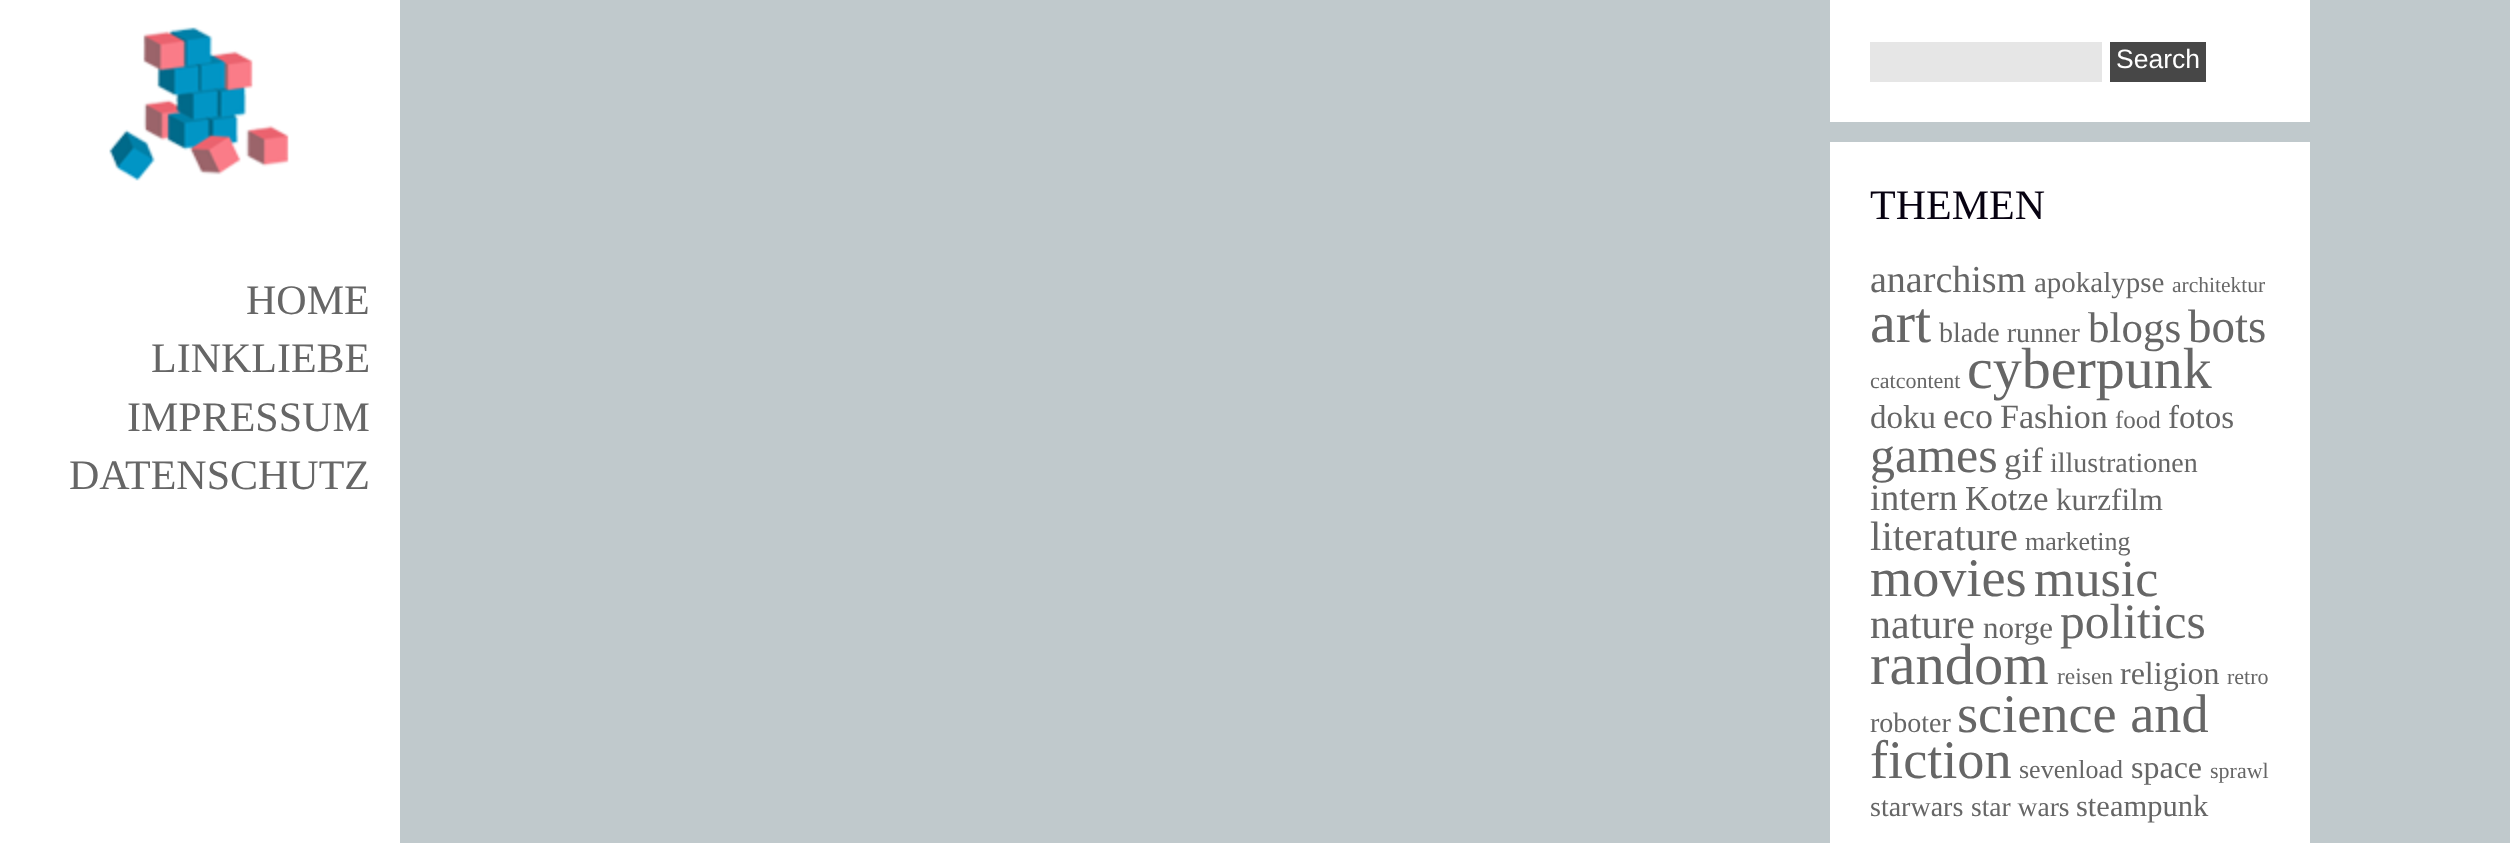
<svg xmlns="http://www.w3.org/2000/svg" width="2510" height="843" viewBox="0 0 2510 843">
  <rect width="100%" height="100%" fill="#c0c9cc"/>
  <path d="M0 0h400v843H0z" fill="#fff"/>
  <path d="M1830 0h480v122H1830z" fill="#fff"/>
  <path d="M1870 42h232v40H1870z" fill="#e6e6e6"/>
  <path d="M2110 42h96v40H2110z" fill="#474747"/>
  <path d="M1830 142h480v701H1830z" fill="#fff"/>
  <image x="109" y="27" width="180" height="154" href="img/1.png"/>
  <text x="2116" y="68" font-family="Liberation Sans" font-size="26.5" fill="#fff">Search</text>
  <text x="1870" y="219" font-family="Liberation Serif" font-size="42" fill="#070211">THEMEN</text>
  <text x="1870" y="292" font-family="Liberation Serif" font-size="38" fill="#666">anarchism</text>
  <text x="2034" y="292" font-family="Liberation Serif" font-size="29" fill="#666">apokalypse</text>
  <text x="2172" y="292" font-family="Liberation Serif" font-size="21.5" fill="#666">architektur</text>
  <text x="1870" y="342" font-family="Liberation Serif" font-size="58" fill="#666">art</text>
  <text x="1939" y="342" font-family="Liberation Serif" font-size="28" fill="#666">blade runner</text>
  <text x="2088" y="342" font-family="Liberation Serif" font-size="43" fill="#666">blogs</text>
  <text x="2188" y="342" font-family="Liberation Serif" font-size="47" fill="#666">bots</text>
  <text x="1870" y="388" font-family="Liberation Serif" font-size="22" fill="#666">catcontent</text>
  <text x="1967" y="388" font-family="Liberation Serif" font-size="58" fill="#666">cyberpunk</text>
  <text x="1870" y="428" font-family="Liberation Serif" font-size="33" fill="#666">doku</text>
  <text x="1943" y="428" font-family="Liberation Serif" font-size="36" fill="#666">eco</text>
  <text x="2000" y="428" font-family="Liberation Serif" font-size="34" fill="#666">Fashion</text>
  <text x="2115" y="428" font-family="Liberation Serif" font-size="25" fill="#666">food</text>
  <text x="2168" y="428" font-family="Liberation Serif" font-size="33" fill="#666">fotos</text>
  <text x="1870" y="472" font-family="Liberation Serif" font-size="50" fill="#666">games</text>
  <text x="2004" y="472" font-family="Liberation Serif" font-size="35" fill="#666">gif</text>
  <text x="2050" y="472" font-family="Liberation Serif" font-size="28" fill="#666">illustrationen</text>
  <text x="1870" y="510" font-family="Liberation Serif" font-size="37.5" fill="#666">intern</text>
  <text x="1965" y="510" font-family="Liberation Serif" font-size="35" fill="#666">Kotze</text>
  <text x="2056" y="510" font-family="Liberation Serif" font-size="31" fill="#666">kurzfilm</text>
  <text x="1870" y="550" font-family="Liberation Serif" font-size="41" fill="#666">literature</text>
  <text x="2025" y="550" font-family="Liberation Serif" font-size="26" fill="#666">marketing</text>
  <text x="1870" y="596" font-family="Liberation Serif" font-size="54.25" fill="#666">movies</text>
  <text x="2034" y="596" font-family="Liberation Serif" font-size="52" fill="#666">music</text>
  <text x="1870" y="638" font-family="Liberation Serif" font-size="42" fill="#666">nature</text>
  <text x="1983" y="638" font-family="Liberation Serif" font-size="31" fill="#666">norge</text>
  <text x="2060" y="638" font-family="Liberation Serif" font-size="49.5" fill="#666">politics</text>
  <text x="1870" y="684" font-family="Liberation Serif" font-size="58.5" fill="#666">random</text>
  <text x="2057" y="684" font-family="Liberation Serif" font-size="23.5" fill="#666">reisen</text>
  <text x="2120" y="684" font-family="Liberation Serif" font-size="32" fill="#666">religion</text>
  <text x="2227" y="684" font-family="Liberation Serif" font-size="22" fill="#666">retro</text>
  <text x="1870" y="732" font-family="Liberation Serif" font-size="28" fill="#666">roboter</text>
  <g font-family="Liberation Serif" font-size="54.25" fill="#666">
    <text x="1957" y="732">science and</text>
    <text x="1870" y="778">fiction</text>
  </g>
  <text x="2019" y="778" font-family="Liberation Serif" font-size="26" fill="#666">sevenload</text>
  <text x="2131" y="778" font-family="Liberation Serif" font-size="32" fill="#666">space</text>
  <text x="2210" y="778" font-family="Liberation Serif" font-size="22" fill="#666">sprawl</text>
  <text x="1870" y="816" font-family="Liberation Serif" font-size="28" fill="#666">starwars</text>
  <text x="1971" y="816" font-family="Liberation Serif" font-size="27.5" fill="#666">star wars</text>
  <text x="2076" y="816" font-family="Liberation Serif" font-size="30.5" fill="#666">steampunk</text>
  <g font-family="Liberation Serif" font-size="42" fill="#666">
    <text x="246" y="314">HOME</text>
    <text x="151" y="372">LINKLIEBE</text>
    <text x="127" y="431">IMPRESSUM</text>
    <text x="69" y="489">DATENSCHUTZ</text>
  </g>
</svg>
